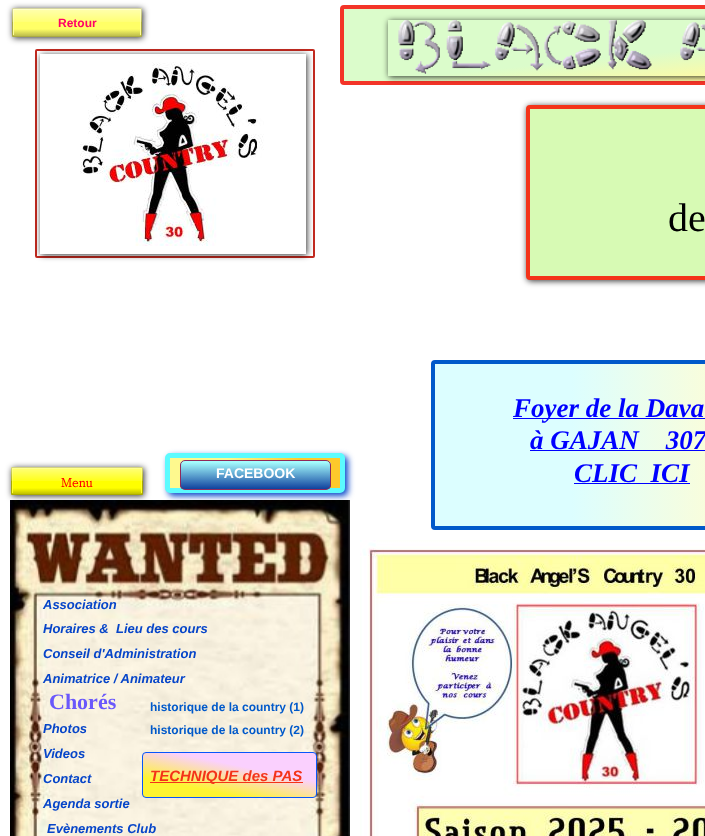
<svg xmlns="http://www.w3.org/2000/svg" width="705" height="836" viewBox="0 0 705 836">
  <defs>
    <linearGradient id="g1" gradientUnits="userSpaceOnUse" x1="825" y1="36" x2="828" y2="66"><stop offset="0" stop-color="#dbfccb"/><stop offset="1" stop-color="#fefaa5"/></linearGradient>
    <linearGradient id="g2" gradientUnits="userSpaceOnUse" x1="13" y1="29" x2="13" y2="38"><stop offset="0" stop-color="#ff6"/><stop offset="1" stop-color="#aa4"/></linearGradient>
    <linearGradient id="g3" gradientUnits="userSpaceOnUse" x1="12" y1="8" x2="12" y2="22"><stop offset="0" stop-color="#fff" stop-opacity="0.5"/><stop offset="1" stop-color="#fff" stop-opacity="0.1"/></linearGradient>
    <clipPath id="clip1"><path d="M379 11H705V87H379ZM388 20H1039V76H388Z" clip-rule="evenodd"/></clipPath>
    <clipPath id="clip2"><path d="M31 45H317V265H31ZM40 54H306V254H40Z" clip-rule="evenodd"/></clipPath>
    <linearGradient id="g4" gradientUnits="userSpaceOnUse" x1="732" y1="207" x2="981" y2="207"><stop offset="0" stop-color="#d7fab4"/><stop offset="1" stop-color="#fef994"/></linearGradient>
    <linearGradient id="g5" gradientUnits="userSpaceOnUse" x1="228" y1="480" x2="301" y2="480"><stop offset="0" stop-color="#fef98e"/><stop offset="1" stop-color="#fdc92b"/></linearGradient>
    <linearGradient id="g6" gradientUnits="userSpaceOnUse" x1="571" y1="459" x2="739" y2="459"><stop offset="0" stop-color="#dcfeff"/><stop offset="1" stop-color="#fffdd4"/></linearGradient>
    <clipPath id="clip3"><rect x="180" y="460" width="151" height="30" rx="5"/></clipPath>
    <linearGradient id="g7" gradientUnits="userSpaceOnUse" x1="184" y1="462" x2="184" y2="491"><stop offset="0" stop-color="#a5fdfe"/><stop offset="1" stop-color="#053497"/></linearGradient>
    <linearGradient id="g8" gradientUnits="userSpaceOnUse" x1="12" y1="488" x2="12" y2="496"><stop offset="0" stop-color="#ff0"/><stop offset="1" stop-color="#aa0"/></linearGradient>
    <linearGradient id="g9" gradientUnits="userSpaceOnUse" x1="11" y1="467" x2="11" y2="481"><stop offset="0" stop-color="#fff" stop-opacity="0.5"/><stop offset="1" stop-color="#fff" stop-opacity="0.1"/></linearGradient>
    <clipPath id="clip4"><rect x="142" y="752" width="175" height="46" rx="4"/></clipPath>
    <linearGradient id="g10" gradientUnits="userSpaceOnUse" x1="235" y1="765" x2="229" y2="795"><stop offset="0" stop-color="#fad0fe"/><stop offset="1" stop-color="#fef431"/></linearGradient>
  </defs>
  <rect width="100%" height="100%" fill="#fff"/>
  <path d="M344 9h361v72H344z" fill="url(#g1)"/>
  <rect x="342" y="7" width="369" height="76" rx="2" fill="none" stroke="#f33428" stroke-width="4"/>
  <path d="M13 9h130v29H13z" fill="#000000cc" filter="blur(3px)"/>
  <path d="M13 10h128v26H13z" fill="url(#g2)"/>
  <path d="M12.5 8.5h129v28H12.5z" fill="none" stroke="#aa4"/>
  <path d="M13 9h128v1H13z" fill="#ff9"/>
  <path d="M140 9h1v26H140z" fill="#ff9"/>
  <path d="M13 9h1v26H13z" fill="#ff9"/>
  <path d="M12 8h130v14H12z" fill="url(#g3)"/>
  <g clip-path="url(#clip1)">
    <path d="M389 21h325v56H389z" fill="#000000cc" filter="blur(3px)"/>
  </g>
  <image x="398" y="20" width="307" height="54" href="img/1.png"/>
  <rect x="36" y="50" width="278" height="207" rx="1" fill="none" stroke="#c22a20" stroke-width="2"/>
  <g clip-path="url(#clip2)">
    <path d="M41 55h266v200H41z" fill="#000000cc" filter="blur(3px)"/>
  </g>
  <image x="80" y="62" width="184" height="184" href="img/2.png"/>
  <rect x="527" y="106" width="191" height="175" rx="4" fill="#000000cc" filter="blur(3px)"/>
  <path d="M530 109h175v167H530z" fill="url(#g4)"/>
  <rect x="528" y="107" width="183" height="171" rx="2" fill="none" stroke="#f43319" stroke-width="4"/>
  <rect x="168" y="456" width="180" height="40" rx="5" fill="#0645c9" filter="blur(3px)"/>
  <path d="M170 458h170v30H170z" fill="url(#g5)"/>
  <rect x="167.5" y="455.5" width="175" height="35" rx="2.5" fill="none" stroke="#5bfbfe" stroke-width="5"/>
  <path d="M435 364h270v162H435z" fill="url(#g6)"/>
  <rect x="433" y="362" width="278" height="166" rx="2" fill="none" stroke="#0059ca" stroke-width="4"/>
  <path d="M513 418h192v1H513z" fill="#00f"/>
  <path d="M530 450h175v1H530z" fill="#00f"/>
  <path d="M574 483h116v1H574z" fill="#00f"/>
  <g clip-path="url(#clip3)">
    <path d="M180 461h151v28H180z" fill="url(#g7)"/>
  </g>
  <rect x="180.5" y="460.5" width="150" height="29" rx="4.5" fill="none" stroke="#91295a"/>
  <image x="10" y="500" width="340" height="336" href="img/3.png"/>
  <path d="M12 468h132v28H12z" fill="#000000cc" filter="blur(3px)"/>
  <path d="M12 469h130v25H12z" fill="url(#g8)"/>
  <path d="M11.5 467.5h131v27H11.5z" fill="none" stroke="#aa0"/>
  <path d="M12 468h130v1H12z" fill="#ff3"/>
  <path d="M141 468h1v25H141z" fill="#ff3"/>
  <path d="M12 468h1v25H12z" fill="#ff3"/>
  <path d="M11 467h132v14H11z" fill="url(#g9)"/>
  <image x="360" y="540" width="345" height="296" href="img/4.png"/>
  <g clip-path="url(#clip4)">
    <path d="M143 753h173v44H143z" fill="url(#g10)"/>
  </g>
  <rect x="142.5" y="752.5" width="174" height="45" rx="3.5" fill="none" stroke="#0856fb"/>
  <path d="M150 782h153v1H150z" fill="#f43319"/>
  <text x="58" y="27" font-family="Liberation Sans" font-size="12" font-weight="bold" fill="#f06">Retour</text>
  <text x="668" y="231" font-family="Liberation Serif" font-size="40" fill="#000">de</text>
  <g font-family="Liberation Serif" font-size="27" font-weight="bold" font-style="italic" fill="#00f">
    <text x="513" y="417">Foyer de la Dava</text>
    <text x="530" y="449" xml:space="preserve">à GAJAN    307</text>
    <text x="574" y="482" xml:space="preserve">CLIC  ICI</text>
  </g>
  <text x="216" y="478" font-family="Liberation Sans" font-size="14" font-weight="bold" fill="#fff">FACEBOOK</text>
  <text x="61" y="487" font-family="Batang" font-size="12" font-weight="bold" fill="#f00">Menu</text>
  <g font-family="Liberation Sans" font-size="13" font-weight="bold" font-style="italic" fill="#0645c9">
    <text x="43" y="609">Association</text>
    <text x="43" y="633" xml:space="preserve">Horaires &amp;  Lieu des cours</text>
    <text x="43" y="658">Conseil d'Administration</text>
    <text x="43" y="683">Animatrice / Animateur</text>
    <text x="43" y="733">Photos</text>
    <text x="43" y="758">Videos</text>
    <text x="43" y="783">Contact</text>
    <text x="43" y="808">Agenda sortie</text>
    <text x="47" y="833">Evènements Club</text>
  </g>
  <text x="49" y="709" font-family="Liberation Serif" font-size="22" font-weight="bold" fill="#6a58fb">Chorés</text>
  <g font-family="Liberation Sans" font-size="12" font-weight="bold" fill="#0059ca">
    <text x="150" y="711">historique de la country (1)</text>
    <text x="150" y="734">historique de la country (2)</text>
  </g>
  <text x="150" y="781" font-family="Liberation Sans" font-size="15" font-weight="bold" font-style="italic" fill="#f43319">TECHNIQUE des PAS</text>
</svg>
